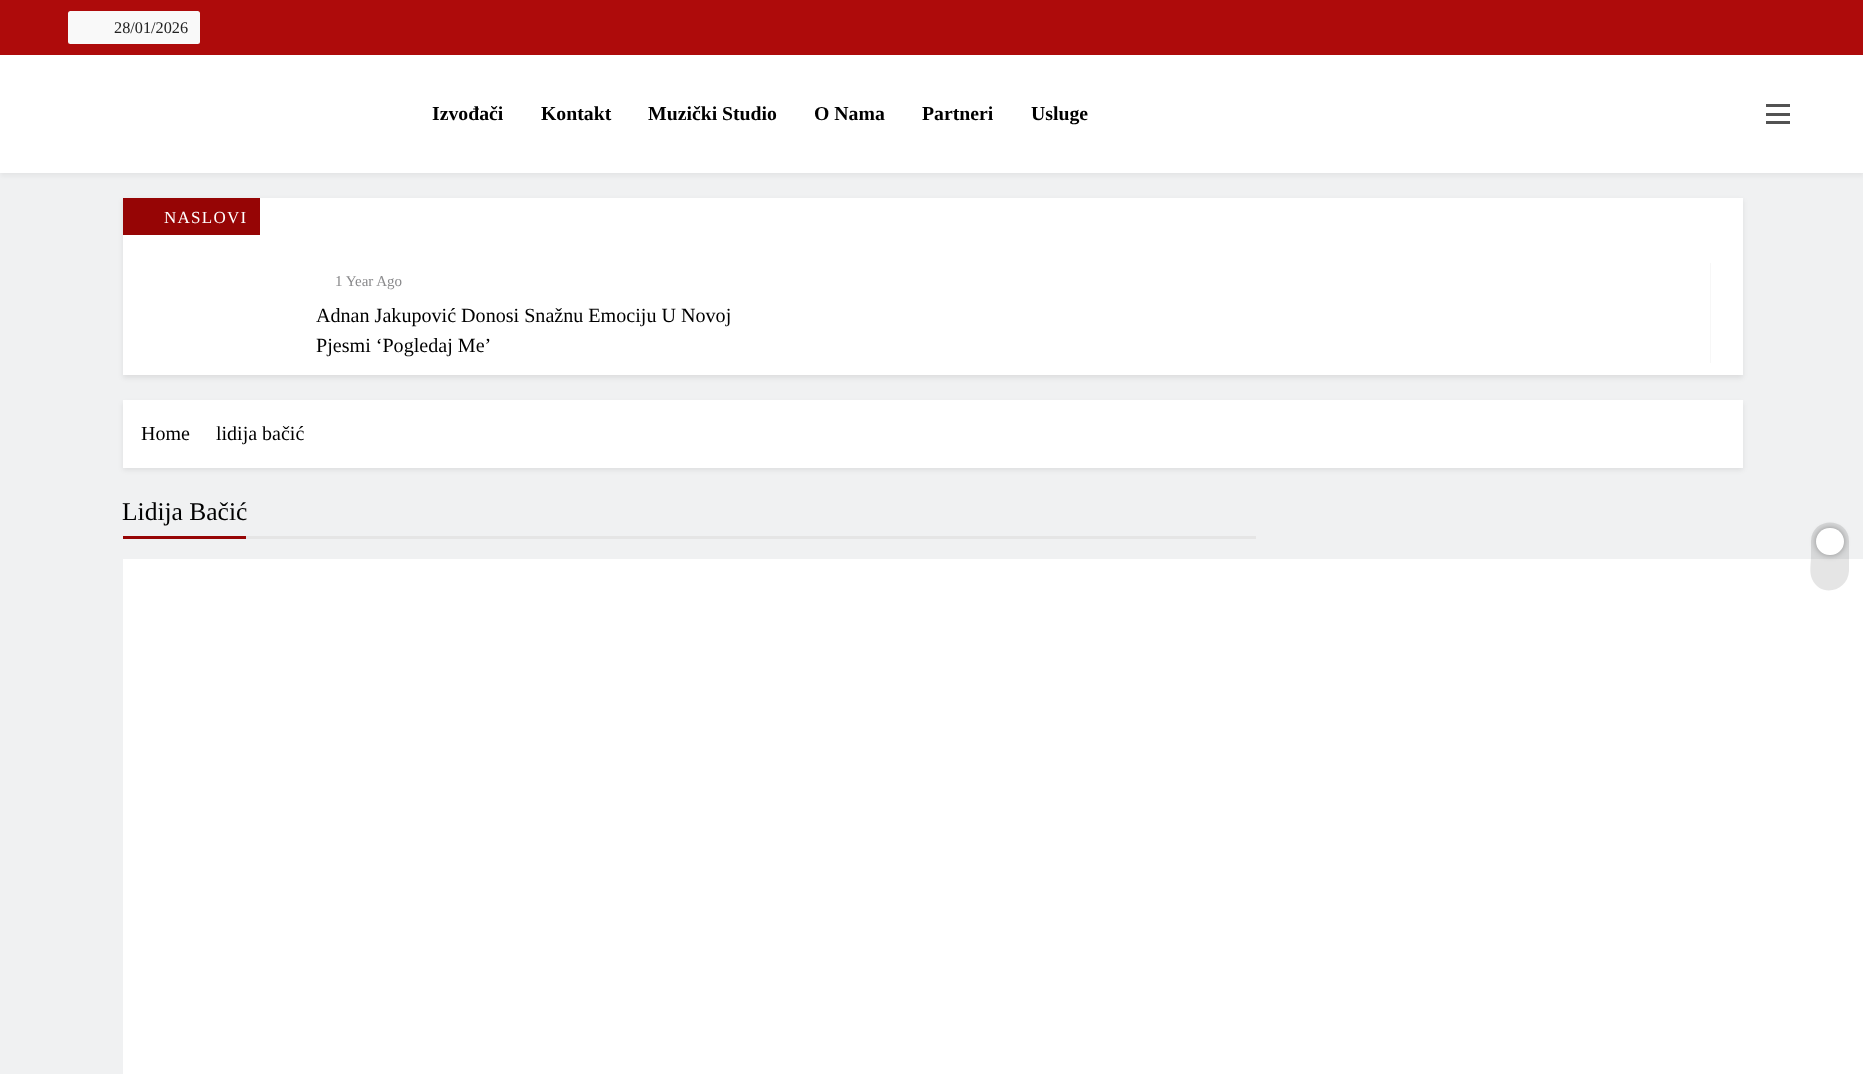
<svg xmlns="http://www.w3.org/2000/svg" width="1863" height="1074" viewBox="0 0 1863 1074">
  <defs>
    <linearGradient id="g1" gradientUnits="userSpaceOnUse" x1="1630" y1="313" x2="1730" y2="313"><stop offset="0" stop-color="#fff" stop-opacity="0"/><stop offset="1" stop-color="#fff"/></linearGradient>
  </defs>
  <rect width="100%" height="100%" fill="#f0f1f2"/>
  <path d="M0 0h1863v55H0z" fill="#ae0b0b"/>
  <rect x="68" y="11" width="132" height="33" rx="2.5" fill="#f9f9f9"/>
  <path d="M0 59h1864v117H0z" fill="#0000000d" filter="blur(2.5px)"/>
  <path d="M0 55h1863v118H0z" fill="#fff"/>
  <path d="M1766 104h24v3H1766z" fill="#525252"/>
  <path d="M1766 113h24v3H1766z" fill="#525252"/>
  <path d="M1766 121h24v3H1766z" fill="#525252"/>
  <path d="M123 559h1740v515H123z" fill="#fff"/>
  <path d="M1849 541V571C1848 592 1820 598 1812 579C1809 572 1811 564 1811 556V541C1812 516 1849 517 1849 541Z" fill="#0000001a"/>
  <rect x="1816" y="528" width="28" height="27" rx="13.5" fill="#00000059" filter="blur(3px)"/>
  <rect x="1816" y="528" width="28" height="27" rx="13.5" fill="#fff"/>
  <path d="M123 200h1620v178H123z" fill="#00000014" filter="blur(2.5px)"/>
  <path d="M123 198h1620v177H123z" fill="#fff"/>
  <path d="M123 198h137v37H123z" fill="#960505"/>
  <path d="M1710 263h1v100H1710z" fill="#d7d7d7"/>
  <path d="M1710 263h1v100H1710z" fill="url(#g1)"/>
  <path d="M123 403h1620v67H123z" fill="#00000014" filter="blur(2.5px)"/>
  <path d="M123 400h1620v68H123z" fill="#fff"/>
  <path d="M246 536h1010v3H246z" fill="#e5e5e5"/>
  <path d="M123 536h123v3H123z" fill="#960505"/>
  <text x="114" y="33" font-family="Liberation Serif" font-size="16.25" fill="#222">28/01/2026</text>
  <g font-family="Liberation Serif" font-size="19.75" font-weight="bold" fill="#000">
    <text x="432" y="120">Izvođači</text>
    <text x="541" y="120">Kontakt</text>
    <text x="648" y="120">Muzički Studio</text>
    <text x="814" y="120">O Nama</text>
    <text x="922" y="120">Partneri</text>
    <text x="1031" y="120">Usluge</text>
  </g>
  <text x="164" y="223" font-family="Liberation Serif" font-size="17" letter-spacing="1.25" fill="#fff">NASLOVI</text>
  <text x="335" y="286" font-family="Liberation Serif" font-size="15" fill="#8a8a8c">1 Year Ago</text>
  <g font-family="Liberation Serif" font-size="20.1" fill="#000">
    <text x="316" y="322">Adnan Jakupović Donosi Snažnu Emociju U Novoj</text>
    <text x="316" y="352">Pjesmi ‘Pogledaj Me’</text>
  </g>
  <g font-family="Liberation Serif" font-size="20" fill="#000">
    <text x="141" y="440">Home</text>
    <text x="216" y="440">lidija bačić</text>
  </g>
  <text x="122" y="520" font-family="Liberation Serif" font-size="25.5" fill="#000">Lidija Bačić</text>
</svg>
